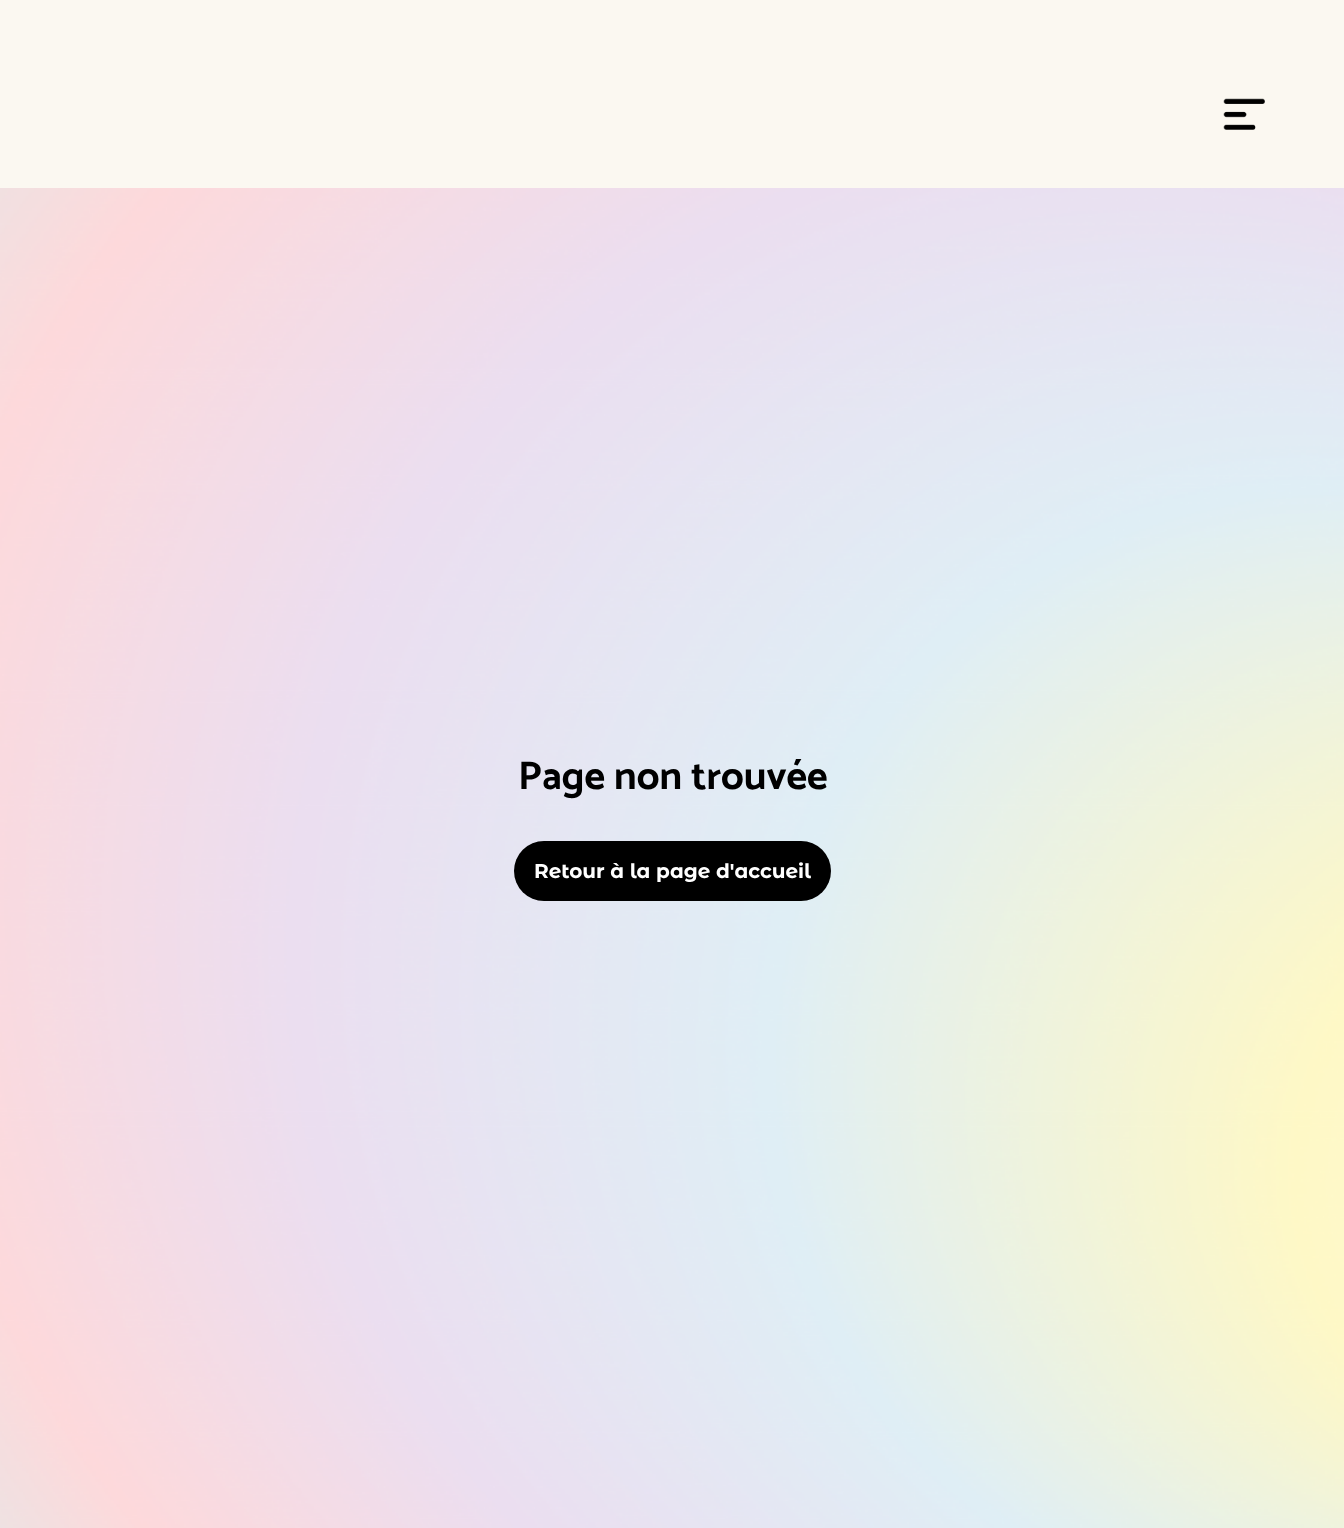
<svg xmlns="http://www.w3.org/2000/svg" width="1344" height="1528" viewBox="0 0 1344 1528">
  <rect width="100%" height="100%" fill="#fff"/>
  <path d="M0 0h1344v188H0z" fill="#fbf8f1"/>
  <image x="1223" y="98" width="42" height="32" href="img/1.png"/>
  <image x="0" y="188" width="1344" height="1340" href="img/2.png"/>
  <rect x="514" y="841" width="317" height="60" rx="30" fill="#000"/>
  <text x="518" y="789" font-family="Catamaran" font-size="40" font-weight="bold" fill="#000">Page non trouvée</text>
  <text x="534" y="878" font-family="Montserrat Alternates" font-size="20" font-weight="bold" fill="#fff">Retour à la page d'accueil</text>
</svg>
